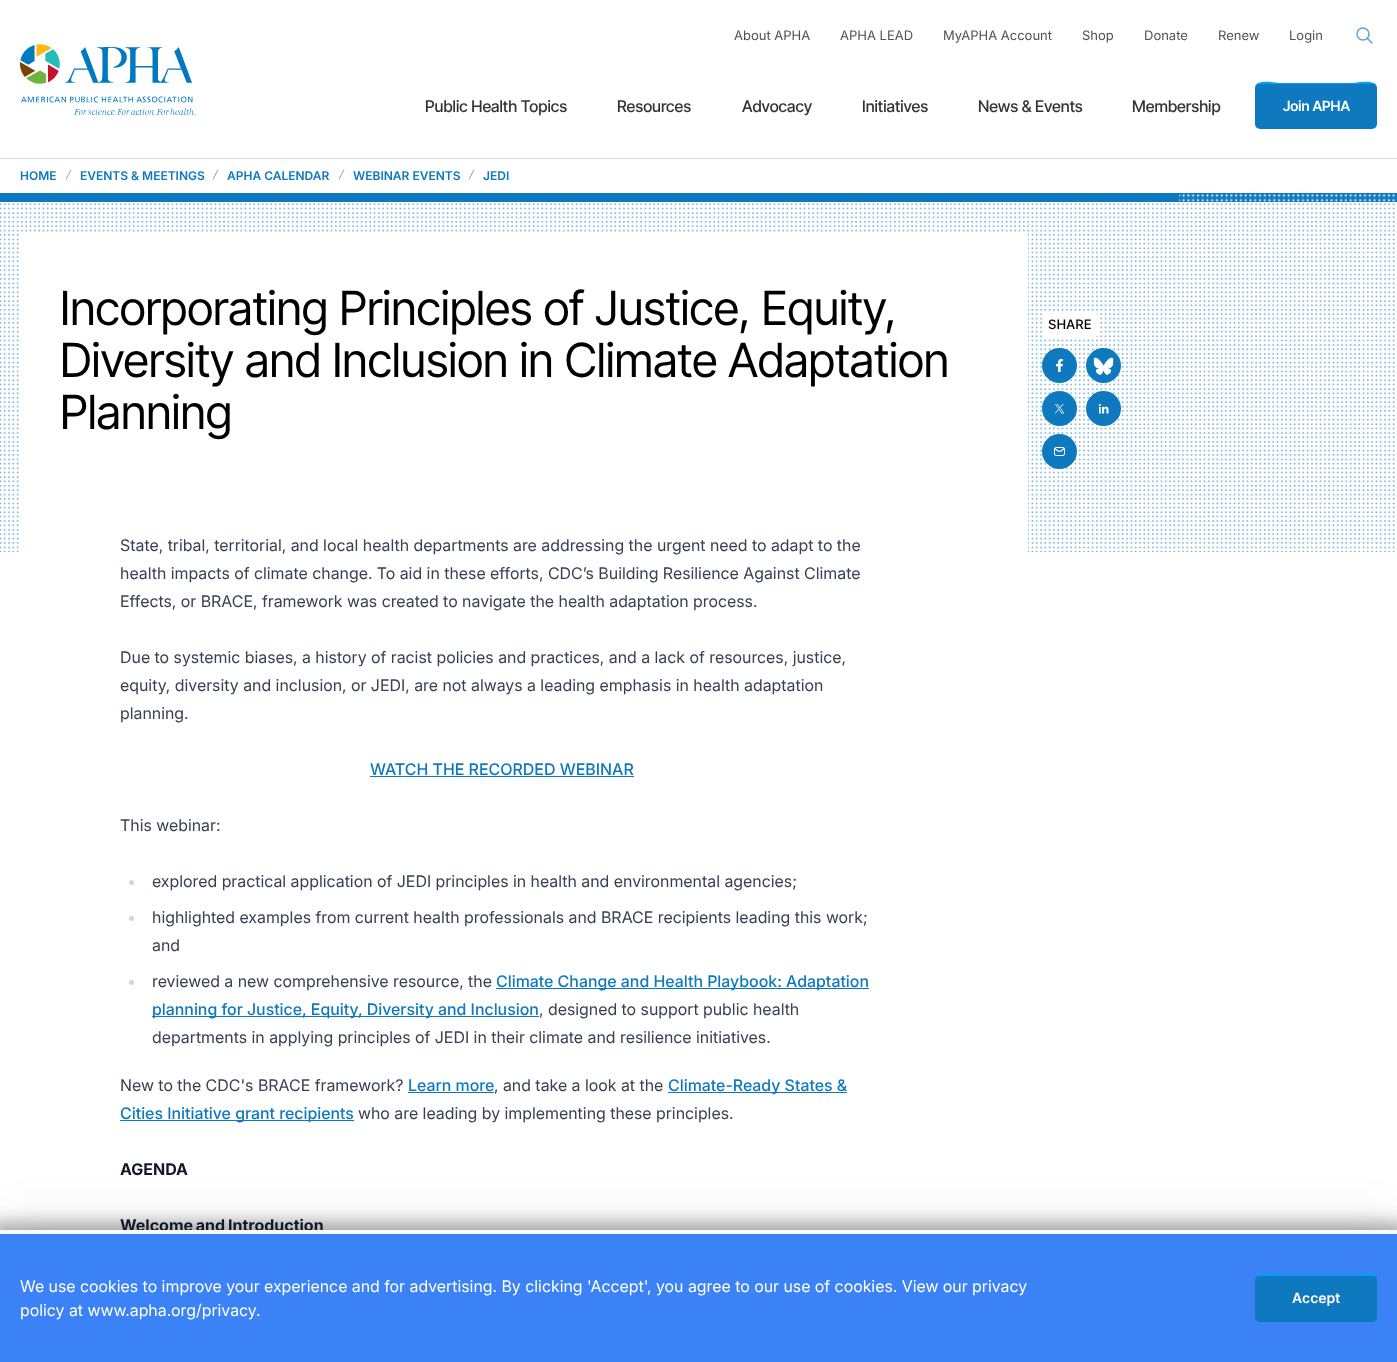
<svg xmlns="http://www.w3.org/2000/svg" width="1397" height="1362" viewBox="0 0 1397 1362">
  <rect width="100%" height="100%" fill="#fff"/>
  <image x="20" y="44" width="175" height="71" href="img/1.png"/>
  <circle cx="1363" cy="34" r="6" fill="none" stroke="#5ea5d4" stroke-width="1.5"/>
  <path d="M1367.5 38.5L1372 43" fill="none" stroke="#5ea5d4" stroke-width="1.5" stroke-linecap="round" stroke-linejoin="round"/>
  <rect x="1255" y="83" width="122" height="46" rx="5" fill="#0e79bf"/>
  <path d="M1260 84H1372C1375 84 1377 86 1377 89C1377 78 1358 83 1353 83H1279C1274 83 1255 78 1255 89C1255 86 1257 84 1260 84Z" fill="#00a0ff"/>
  <path d="M0 158h1397v1H0z" fill="#dadada"/>
  <image x="65" y="169" width="7" height="11" href="img/2.png"/>
  <image x="212" y="169" width="7" height="11" href="img/2.png"/>
  <image x="338" y="169" width="7" height="11" href="img/2.png"/>
  <image x="468" y="169" width="7" height="11" href="img/2.png"/>
  <path d="M0 193h1397v9H0z" fill="#0e79bf"/>
  <image x="1179" y="194" width="218" height="8" href="img/3.png"/>
  <image x="0" y="203" width="1395" height="349" href="img/4.png"/>
  <path d="M25 232H1023C1026 232 1028 234 1028 237V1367H20V237C20 234 22 232 25 232Z" fill="#fff"/>
  <rect x="1042" y="313" width="56" height="24" rx="3" fill="#fff"/>
  <circle cx="1059.5" cy="365.5" r="17.5" fill="#0e79bf"/>
  <image x="1056" y="359" width="7" height="13" href="img/5.png"/>
  <circle cx="1103.5" cy="365.5" r="17.5" fill="#0e79bf"/>
  <image x="1093" y="357" width="21" height="18" href="img/6.png"/>
  <circle cx="1059.5" cy="408.5" r="17.5" fill="#0e79bf"/>
  <image x="1055" y="404" width="9" height="10" href="img/7.png"/>
  <circle cx="1103.5" cy="408.5" r="17.5" fill="#0e79bf"/>
  <image x="1099" y="404" width="10" height="10" href="img/8.png"/>
  <circle cx="1059.5" cy="451.5" r="17.5" fill="#0e79bf"/>
  <image x="1054" y="447" width="11" height="9" href="img/9.png"/>
  <path d="M370 776h264v1H370z" fill="#0e79bf"/>
  <circle cx="131.5" cy="882.5" r="2.5" fill="#d1d5db"/>
  <circle cx="131.5" cy="918.5" r="2.5" fill="#d1d5db"/>
  <circle cx="131.5" cy="982.5" r="2.5" fill="#d1d5db"/>
  <path d="M496 988h373v1H496z" fill="#0e79bf"/>
  <path d="M152 1016h387v1H152z" fill="#0e79bf"/>
  <path d="M408 1092h86v1H408z" fill="#0e79bf"/>
  <path d="M668 1092h179v1H668z" fill="#0e79bf"/>
  <path d="M120 1120h234v1H120z" fill="#0e79bf"/>
  <path d="M0 1230h1397v132H0z" fill="#0000001a" filter="blur(28px)"/>
  <path d="M-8 1222h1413v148H-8z" fill="#0000004d" filter="blur(8px)"/>
  <path d="M0 1234h1397v128H0z" fill="#3b82f6"/>
  <rect x="1255" y="1275" width="122" height="47" rx="5" fill="#0e79bf"/>
  <path d="M1260 1276H1372C1375 1276 1377 1278 1377 1281C1377 1270 1358 1275 1353 1275H1279C1274 1275 1255 1270 1255 1281C1255 1278 1257 1276 1260 1276Z" fill="#00a0ff"/>
  <g font-family="'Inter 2'" font-size="13" fill="#525252">
    <text x="734" y="40">About APHA</text>
    <text x="840" y="40">APHA LEAD</text>
    <text x="943" y="40">MyAPHA Account</text>
    <text x="1082" y="40">Shop</text>
    <text x="1144" y="40">Donate</text>
    <text x="1218" y="40">Renew</text>
    <text x="1289" y="40">Login</text>
  </g>
  <g font-family="Inter Tight" font-size="16" font-weight="500" fill="#333">
    <text x="425" y="112">Public Health Topics</text>
    <text x="617" y="112">Resources</text>
    <text x="742" y="112">Advocacy</text>
    <text x="862" y="112">Initiatives</text>
    <text x="978" y="112">News &amp; Events</text>
    <text x="1132" y="112">Membership</text>
  </g>
  <text x="1283" y="111" font-family="Inter Tight" font-size="14" font-weight="600" fill="#fff">Join APHA</text>
  <g font-family="Inter" font-size="12" font-weight="600" fill="#0e79bf">
    <text x="20" y="180">HOME</text>
    <text x="80" y="180">EVENTS &amp; MEETINGS</text>
    <text x="227" y="180">APHA CALENDAR</text>
    <text x="353" y="180">WEBINAR EVENTS</text>
    <text x="483" y="180">JEDI</text>
  </g>
  <g font-family="Inter Tight" font-size="47" fill="#000">
    <text x="60" y="325">Incorporating Principles of Justice, Equity,</text>
    <text x="60" y="377">Diversity and Inclusion in Climate Adaptation</text>
    <text x="60" y="429">Planning</text>
  </g>
  <text x="1048" y="329" font-family="'Inter 2'" font-size="13" font-weight="500" fill="#000">SHARE</text>
  <g font-family="Inter" font-size="16" fill="#374151">
    <text x="120" y="551">State, tribal, territorial, and local health departments are addressing the urgent need to adapt to the</text>
    <text x="120" y="579">health impacts of climate change. To aid in these efforts, CDC’s Building Resilience Against Climate</text>
    <text x="120" y="607">Effects, or BRACE, framework was created to navigate the health adaptation process.</text>
    <text x="120" y="663">Due to systemic biases, a history of racist policies and practices, and a lack of resources, justice,</text>
    <text x="120" y="691">equity, diversity and inclusion, or JEDI, are not always a leading emphasis in health adaptation</text>
    <text x="120" y="719">planning.</text>
  </g>
  <text x="370" y="775" font-family="Inter" font-size="16" font-weight="500" fill="#0e79bf">WATCH THE RECORDED WEBINAR</text>
  <g font-family="Inter" font-size="16" fill="#374151">
    <text x="120" y="831">This webinar:</text>
    <text x="152" y="887">explored practical application of JEDI principles in health and environmental agencies;</text>
    <text x="152" y="923">highlighted examples from current health professionals and BRACE recipients leading this work;</text>
    <text x="152" y="951">and</text>
    <text x="152" y="987">reviewed a new comprehensive resource, the</text>
  </g>
  <g font-family="Inter" font-size="16" font-weight="500" fill="#0e79bf">
    <text x="496" y="987">Climate Change and Health Playbook: Adaptation</text>
    <text x="152" y="1015">planning for Justice, Equity, Diversity and Inclusion</text>
  </g>
  <g font-family="Inter" font-size="16" fill="#374151">
    <text x="539" y="1015">, designed to support public health</text>
    <text x="152" y="1043">departments in applying principles of JEDI in their climate and resilience initiatives.</text>
    <text x="120" y="1091">New to the CDC's BRACE framework?</text>
  </g>
  <text x="408" y="1091" font-family="Inter" font-size="16" font-weight="500" fill="#0e79bf">Learn more</text>
  <text x="494" y="1091" font-family="Inter" font-size="16" fill="#374151">, and take a look at the</text>
  <g font-family="Inter" font-size="16" font-weight="500" fill="#0e79bf">
    <text x="668" y="1091">Climate-Ready States &amp;</text>
    <text x="120" y="1119">Cities Initiative grant recipients</text>
  </g>
  <text x="358" y="1119" font-family="Inter" font-size="16" fill="#374151">who are leading by implementing these principles.</text>
  <g font-family="Inter" font-size="16" font-weight="bold" fill="#111827">
    <text x="120" y="1175">AGENDA</text>
    <text x="120" y="1231" word-spacing="-1">Welcome and Introduction</text>
  </g>
  <path d="M0 1230h1397v4H0z" fill="#faf9f9"/>
  <g font-family="Inter" font-size="16" fill="#fff">
    <text x="20" y="1292">We use cookies to improve your experience and for advertising. By clicking 'Accept', you agree to our use of cookies. View our privacy</text>
    <text x="20" y="1316">policy at www.apha.org/privacy.</text>
  </g>
  <text x="1292" y="1303" font-family="Inter" font-size="14" font-weight="600" fill="#fff">Accept</text>
</svg>
